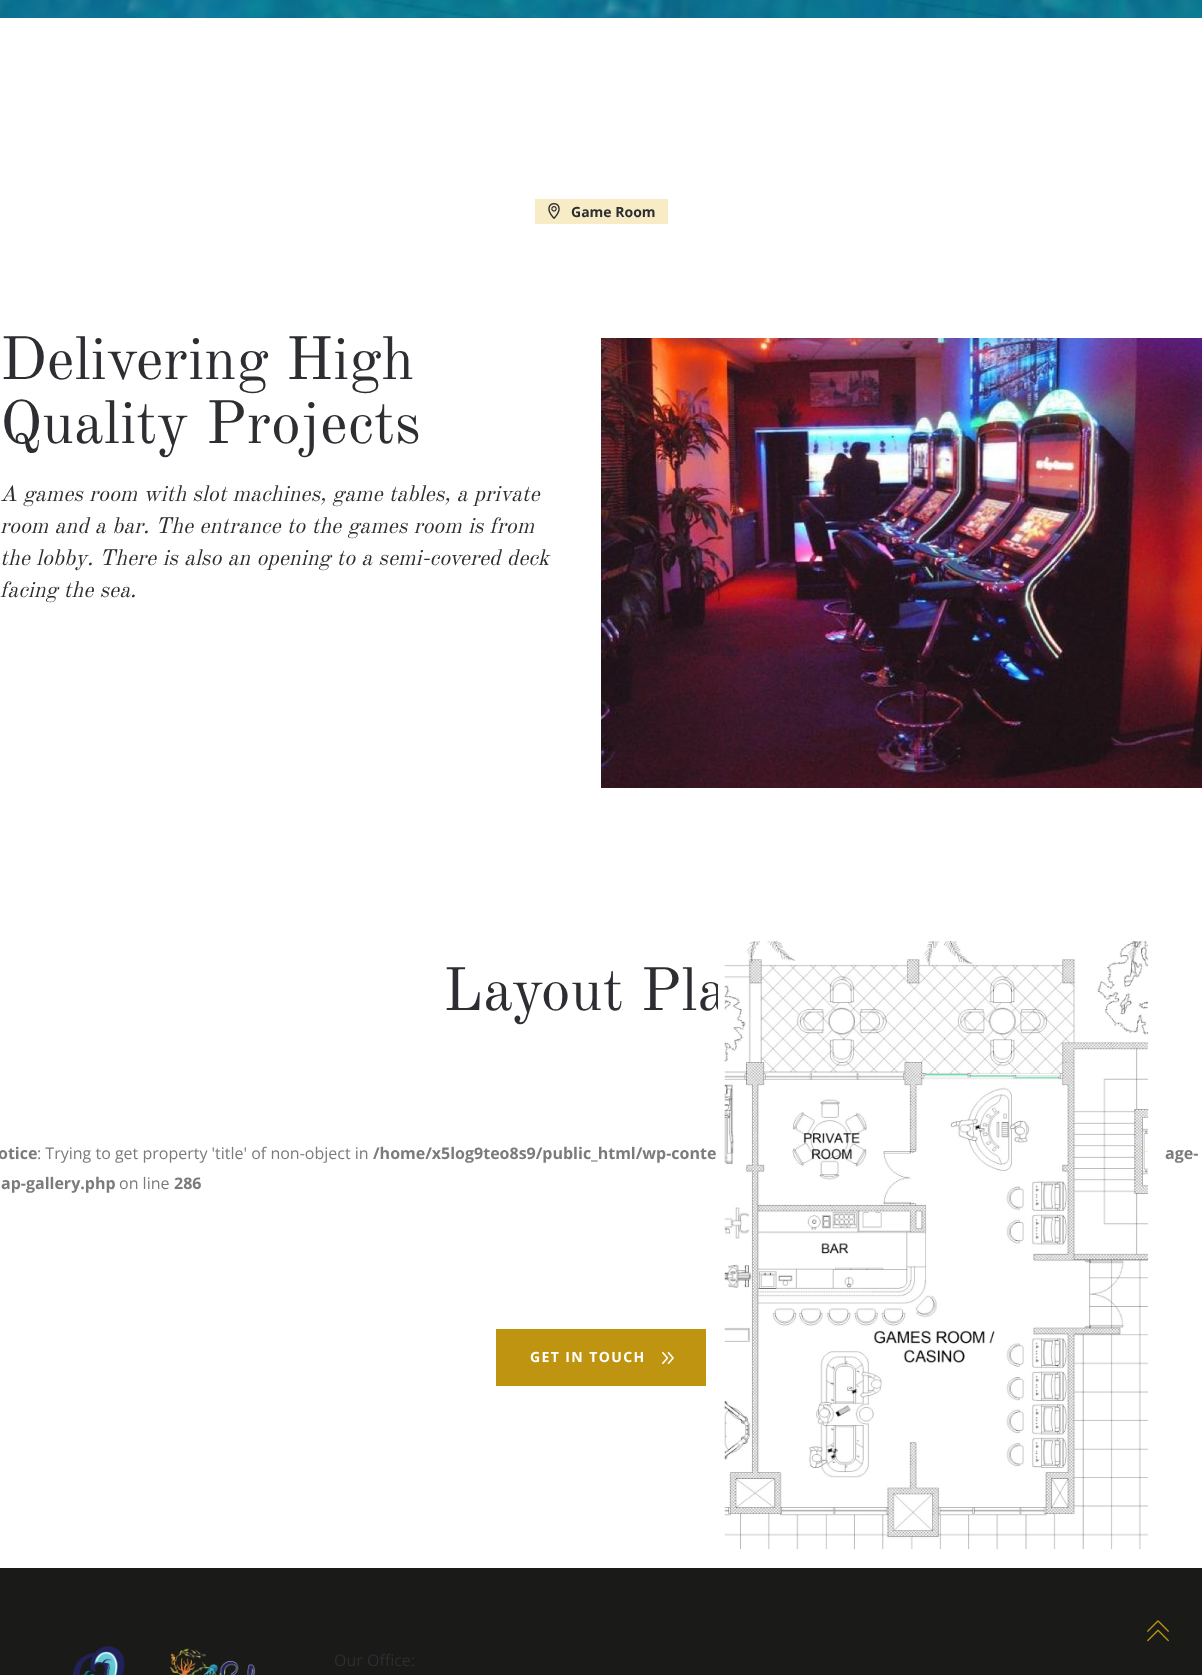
<svg xmlns="http://www.w3.org/2000/svg" width="1202" height="1675" viewBox="0 0 1202 1675">
  <rect width="100%" height="100%" fill="#fff"/>
  <image x="0" y="0" width="1202" height="18" href="img/1.png"/>
  <path d="M535 199h133v25H535z" fill="#f8ecc7"/>
  <image x="548" y="203" width="12" height="16" href="img/2.png"/>
  <image x="601" y="338" width="601" height="450" href="img/3.png"/>
  <path d="M496 1329h210v57H496z" fill="#bf9410"/>
  <image x="662" y="1352" width="12" height="12" href="img/5.png"/>
  <path d="M0 1568h1202v107H0z" fill="#1a1b19"/>
  <image x="1147" y="1620" width="22" height="22" href="img/6.png"/>
  <image x="73" y="1646" width="183" height="29" href="img/7.png"/>
  <text x="571" y="217" font-family="Open Sans" font-size="14" font-weight="bold" fill="#2d2e32">Game Room</text>
  <g font-family="Old Standard TT" font-size="60" fill="#2d2e32">
    <text x="0" y="379">Delivering High</text>
    <text x="0" y="443">Quality Projects</text>
  </g>
  <g font-family="Old Standard TT" font-size="22" font-style="italic" fill="#2d2e32">
    <text x="0" y="501">A games room with slot machines, game tables, a private</text>
    <text x="0" y="533">room and a bar. The entrance to the games room is from</text>
    <text x="0" y="565">the lobby. There is also an opening to a semi-covered deck</text>
    <text x="0" y="597">facing the sea.</text>
  </g>
  <text x="443" y="1010" font-family="Old Standard TT" font-size="60" fill="#2d2e32">Layout Pla</text>
  <text x="-2" y="1159" font-family="Open Sans" font-size="16" font-weight="bold" fill="#7b7b7b">otice</text>
  <text x="37" y="1159" font-family="Open Sans" font-size="16" fill="#7b7b7b">: Trying to get property 'title' of non-object in</text>
  <text x="373" y="1159" font-family="Open Sans" font-size="16" font-weight="bold" fill="#7b7b7b">/home/x5log9teo8s9/public_html/wp-conte</text>
  <image x="717" y="941" width="445" height="609" href="img/4.png"/>
  <g font-family="Open Sans" font-size="16" font-weight="bold" fill="#7b7b7b">
    <text x="1165" y="1159">age-</text>
    <text x="1" y="1189">ap-gallery.php</text>
  </g>
  <text x="119" y="1189" font-family="Open Sans" font-size="16" fill="#7b7b7b">on line</text>
  <text x="174" y="1189" font-family="Open Sans" font-size="16" font-weight="bold" fill="#7b7b7b">286</text>
  <text x="530" y="1362" font-family="Open Sans" font-size="14" font-weight="bold" letter-spacing="1.4" fill="#fff">GET IN TOUCH</text>
  <text x="334" y="1666" font-family="Open Sans" font-size="16" fill="#2d2e32">Our Office:</text>
</svg>
